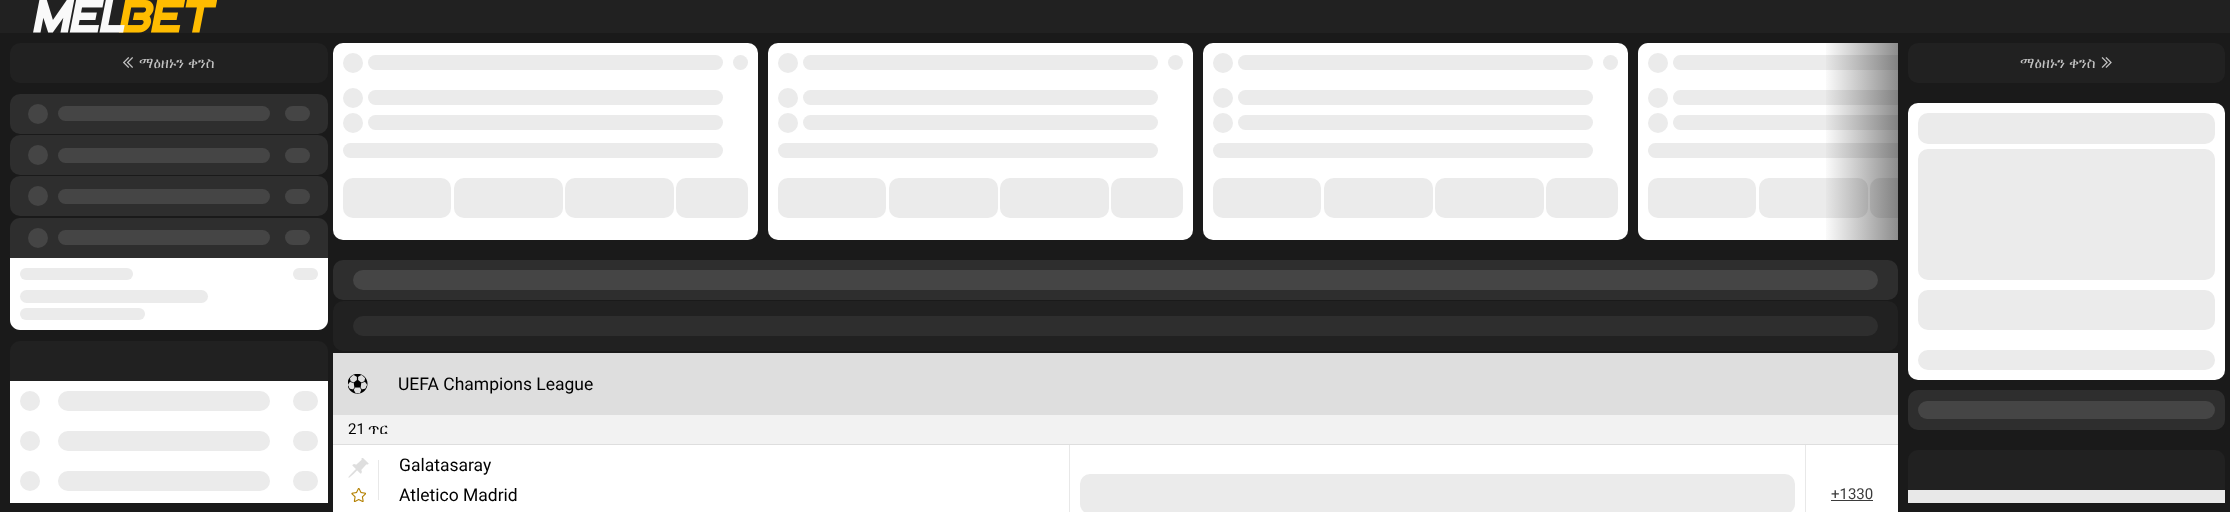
<svg xmlns="http://www.w3.org/2000/svg" width="2230" height="512" viewBox="0 0 2230 512">
  <defs>
    <linearGradient id="g1" gradientUnits="userSpaceOnUse" x1="1823" y1="146" x2="1898" y2="146"><stop offset="0" stop-color="#1a1a1a" stop-opacity="0"/><stop offset="1" stop-color="#1a1a1a" stop-opacity="0.5"/></linearGradient>
  </defs>
  <rect width="100%" height="100%" fill="#1a1a1a"/>
  <path d="M0 0h2230v33H0z" fill="#212121"/>
  <image x="33" y="0" width="184" height="33" href="img/1.png"/>
  <rect x="10" y="43" width="318" height="40" rx="10" fill="#212121"/>
  <image x="123" y="57" width="10" height="11" href="img/2.png"/>
  <rect x="10" y="94" width="318" height="40" rx="10" fill="#2e2e2e"/>
  <circle cx="38" cy="114" r="10" fill="#454545"/>
  <rect x="58" y="106" width="212" height="15" rx="7.5" fill="#454545"/>
  <rect x="285" y="106" width="25" height="15" rx="7.5" fill="#454545"/>
  <rect x="10" y="135" width="318" height="40" rx="10" fill="#2e2e2e"/>
  <circle cx="38" cy="155" r="10" fill="#454545"/>
  <rect x="58" y="148" width="212" height="15" rx="7.5" fill="#454545"/>
  <rect x="285" y="148" width="25" height="15" rx="7.5" fill="#454545"/>
  <rect x="10" y="176" width="318" height="40" rx="10" fill="#2e2e2e"/>
  <circle cx="38" cy="196" r="10" fill="#454545"/>
  <rect x="58" y="189" width="212" height="15" rx="7.5" fill="#454545"/>
  <rect x="285" y="189" width="25" height="15" rx="7.5" fill="#454545"/>
  <path d="M20 218H318C323.5 218 328 222.5 328 228V258H10V228C10 222.5 14.5 218 20 218Z" fill="#2e2e2e"/>
  <circle cx="38" cy="238" r="10" fill="#454545"/>
  <rect x="58" y="230" width="212" height="15" rx="7.5" fill="#454545"/>
  <rect x="285" y="230" width="25" height="15" rx="7.5" fill="#454545"/>
  <path d="M10 258H328V320C328 325.5 323.5 330 318 330H20C14.5 330 10 325.5 10 320Z" fill="#fff"/>
  <rect x="20" y="268" width="113" height="12" rx="6" fill="#ebebeb"/>
  <rect x="20" y="290" width="188" height="13" rx="6.5" fill="#ebebeb"/>
  <rect x="20" y="308" width="125" height="12" rx="6" fill="#ebebeb"/>
  <rect x="293" y="268" width="25" height="12" rx="6" fill="#ebebeb"/>
  <path d="M20 341H318C323.5 341 328 345.5 328 351V381H10V351C10 345.5 14.5 341 20 341Z" fill="#212121"/>
  <path d="M10 381h318v122H10z" fill="#fff"/>
  <circle cx="30" cy="401" r="10" fill="#ebebeb"/>
  <rect x="58" y="391" width="212" height="20" rx="10" fill="#ebebeb"/>
  <rect x="293" y="391" width="25" height="20" rx="10" fill="#ebebeb"/>
  <circle cx="30" cy="441" r="10" fill="#ebebeb"/>
  <rect x="58" y="431" width="212" height="20" rx="10" fill="#ebebeb"/>
  <rect x="293" y="431" width="25" height="20" rx="10" fill="#ebebeb"/>
  <circle cx="30" cy="481" r="10" fill="#ebebeb"/>
  <rect x="58" y="471" width="212" height="20" rx="10" fill="#ebebeb"/>
  <rect x="293" y="471" width="25" height="20" rx="10" fill="#ebebeb"/>
  <rect x="1908" y="43" width="317" height="40" rx="10" fill="#212121"/>
  <image x="2101" y="57" width="11" height="11" href="img/3.png"/>
  <rect x="1908" y="103" width="317" height="277" rx="10" fill="#fff"/>
  <rect x="1918" y="113" width="297" height="31" rx="10" fill="#ebebeb"/>
  <rect x="1918" y="149" width="297" height="131" rx="10" fill="#ebebeb"/>
  <rect x="1918" y="290" width="297" height="40" rx="10" fill="#ebebeb"/>
  <rect x="1918" y="350" width="297" height="20" rx="10" fill="#ebebeb"/>
  <rect x="1908" y="390" width="317" height="40" rx="10" fill="#2e2e2e"/>
  <rect x="1918" y="401" width="297" height="18" rx="9" fill="#454545"/>
  <path d="M1918 450H2215C2220.5 450 2225 454.5 2225 460V490H1908V460C1908 454.5 1912.5 450 1918 450Z" fill="#212121"/>
  <path d="M1908 490h317v13H1908z" fill="#e8e8e8"/>
  <rect x="333" y="43" width="425" height="197" rx="10" fill="#fff"/>
  <circle cx="353" cy="63" r="10" fill="#ebebeb"/>
  <rect x="368" y="55" width="355" height="15" rx="7.5" fill="#ebebeb"/>
  <circle cx="353" cy="98" r="10" fill="#ebebeb"/>
  <rect x="368" y="90" width="355" height="15" rx="7.5" fill="#ebebeb"/>
  <circle cx="353" cy="123" r="10" fill="#ebebeb"/>
  <rect x="368" y="115" width="355" height="15" rx="7.5" fill="#ebebeb"/>
  <circle cx="740.5" cy="62.5" r="7.5" fill="#ebebeb"/>
  <rect x="343" y="143" width="380" height="15" rx="7.5" fill="#ebebeb"/>
  <rect x="343" y="178" width="108" height="40" rx="10" fill="#ebebeb"/>
  <rect x="454" y="178" width="109" height="40" rx="10" fill="#ebebeb"/>
  <rect x="565" y="178" width="109" height="40" rx="10" fill="#ebebeb"/>
  <rect x="676" y="178" width="72" height="40" rx="10" fill="#ebebeb"/>
  <rect x="768" y="43" width="425" height="197" rx="10" fill="#fff"/>
  <circle cx="788" cy="63" r="10" fill="#ebebeb"/>
  <rect x="803" y="55" width="355" height="15" rx="7.5" fill="#ebebeb"/>
  <circle cx="788" cy="98" r="10" fill="#ebebeb"/>
  <rect x="803" y="90" width="355" height="15" rx="7.5" fill="#ebebeb"/>
  <circle cx="788" cy="123" r="10" fill="#ebebeb"/>
  <rect x="803" y="115" width="355" height="15" rx="7.5" fill="#ebebeb"/>
  <circle cx="1175.5" cy="62.5" r="7.5" fill="#ebebeb"/>
  <rect x="778" y="143" width="380" height="15" rx="7.5" fill="#ebebeb"/>
  <rect x="778" y="178" width="108" height="40" rx="10" fill="#ebebeb"/>
  <rect x="889" y="178" width="109" height="40" rx="10" fill="#ebebeb"/>
  <rect x="1000" y="178" width="109" height="40" rx="10" fill="#ebebeb"/>
  <rect x="1111" y="178" width="72" height="40" rx="10" fill="#ebebeb"/>
  <rect x="1203" y="43" width="425" height="197" rx="10" fill="#fff"/>
  <circle cx="1223" cy="63" r="10" fill="#ebebeb"/>
  <rect x="1238" y="55" width="355" height="15" rx="7.5" fill="#ebebeb"/>
  <circle cx="1223" cy="98" r="10" fill="#ebebeb"/>
  <rect x="1238" y="90" width="355" height="15" rx="7.5" fill="#ebebeb"/>
  <circle cx="1223" cy="123" r="10" fill="#ebebeb"/>
  <rect x="1238" y="115" width="355" height="15" rx="7.5" fill="#ebebeb"/>
  <circle cx="1610.5" cy="62.5" r="7.5" fill="#ebebeb"/>
  <rect x="1213" y="143" width="380" height="15" rx="7.5" fill="#ebebeb"/>
  <rect x="1213" y="178" width="108" height="40" rx="10" fill="#ebebeb"/>
  <rect x="1324" y="178" width="109" height="40" rx="10" fill="#ebebeb"/>
  <rect x="1435" y="178" width="109" height="40" rx="10" fill="#ebebeb"/>
  <rect x="1546" y="178" width="72" height="40" rx="10" fill="#ebebeb"/>
  <path d="M1648 43H1898V240H1648C1642.5 240 1638 235.5 1638 230V53C1638 47.5 1642.5 43 1648 43Z" fill="#fff"/>
  <circle cx="1658" cy="63" r="10" fill="#ebebeb"/>
  <path d="M1680.5 55H1898V70H1680.5C1676.5 70 1673 66.5 1673 62.5C1673 58.5 1676.5 55 1680.5 55Z" fill="#ebebeb"/>
  <circle cx="1658" cy="98" r="10" fill="#ebebeb"/>
  <path d="M1680.5 90H1898V105H1680.5C1676.5 105 1673 101.5 1673 97.5C1673 93.5 1676.5 90 1680.5 90Z" fill="#ebebeb"/>
  <circle cx="1658" cy="123" r="10" fill="#ebebeb"/>
  <path d="M1680.5 115H1898V130H1680.5C1676.5 130 1673 126.5 1673 122.5C1673 118.5 1676.5 115 1680.5 115Z" fill="#ebebeb"/>
  <path d="M1655.5 143H1898V158H1655.5C1651.5 158 1648 154.5 1648 150.5C1648 146.5 1651.5 143 1655.5 143Z" fill="#ebebeb"/>
  <rect x="1648" y="178" width="108" height="40" rx="10" fill="#ebebeb"/>
  <rect x="1759" y="178" width="109" height="40" rx="10" fill="#ebebeb"/>
  <path d="M1880 178H1898V218H1880C1874.5 218 1870 213.5 1870 208V188C1870 182.5 1874.5 178 1880 178Z" fill="#ebebeb"/>
  <path d="M1826 43h72v197H1826z" fill="url(#g1)"/>
  <rect x="333" y="260" width="1565" height="40" rx="10" fill="#2e2e2e"/>
  <rect x="353" y="270" width="1525" height="20" rx="10" fill="#454545"/>
  <rect x="333" y="301" width="1565" height="50" rx="10" fill="#212121"/>
  <rect x="353" y="316" width="1525" height="20" rx="10" fill="#2e2e2e"/>
  <path d="M333 445h1565v67H333z" fill="#fff"/>
  <path d="M333 353h712v62H333z" fill="#dedede"/>
  <image x="348" y="374" width="20" height="20" href="img/4.png"/>
  <path d="M1045 353h853v62H1045z" fill="#dedede"/>
  <path d="M333 415h1565v29H333z" fill="#f2f2f2"/>
  <path d="M333 444h1565v1H333z" fill="#dedede"/>
  <image x="348" y="458" width="21" height="20" href="img/5.png"/>
  <path d="M378 460h1v40H378z" fill="#e8e8e8"/>
  <image x="351" y="488" width="15" height="14" href="img/6.png"/>
  <path d="M1069 445h1v67H1069z" fill="#e8e8e8"/>
  <rect x="1080" y="474" width="715" height="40" rx="10" fill="#ebebeb"/>
  <path d="M1805 445h1v67H1805z" fill="#e8e8e8"/>
  <path d="M1831 500h42v1H1831z" fill="#3b3b3b"/>
  <g font-family="FreeSerif" font-size="15" fill="#c2c2c2">
    <text x="139" y="68">ማዕዘኑን ቀንስ</text>
    <text x="2020" y="68">ማዕዘኑን ቀንስ</text>
  </g>
  <text x="398" y="390" font-family="Roboto" font-size="17.5" fill="#000">UEFA Champions League</text>
  <text x="348" y="434" font-family="Roboto" font-size="15" fill="#000">21</text>
  <text x="368" y="434" font-family="FreeSerif" font-size="15" fill="#000">ጥር</text>
  <g font-family="Roboto" font-size="17.5" fill="#000">
    <text x="399" y="471">Galatasaray</text>
    <text x="399" y="501">Atletico Madrid</text>
  </g>
  <text x="1831" y="499" font-family="Roboto" font-size="15" fill="#3b3b3b">+1330</text>
</svg>
